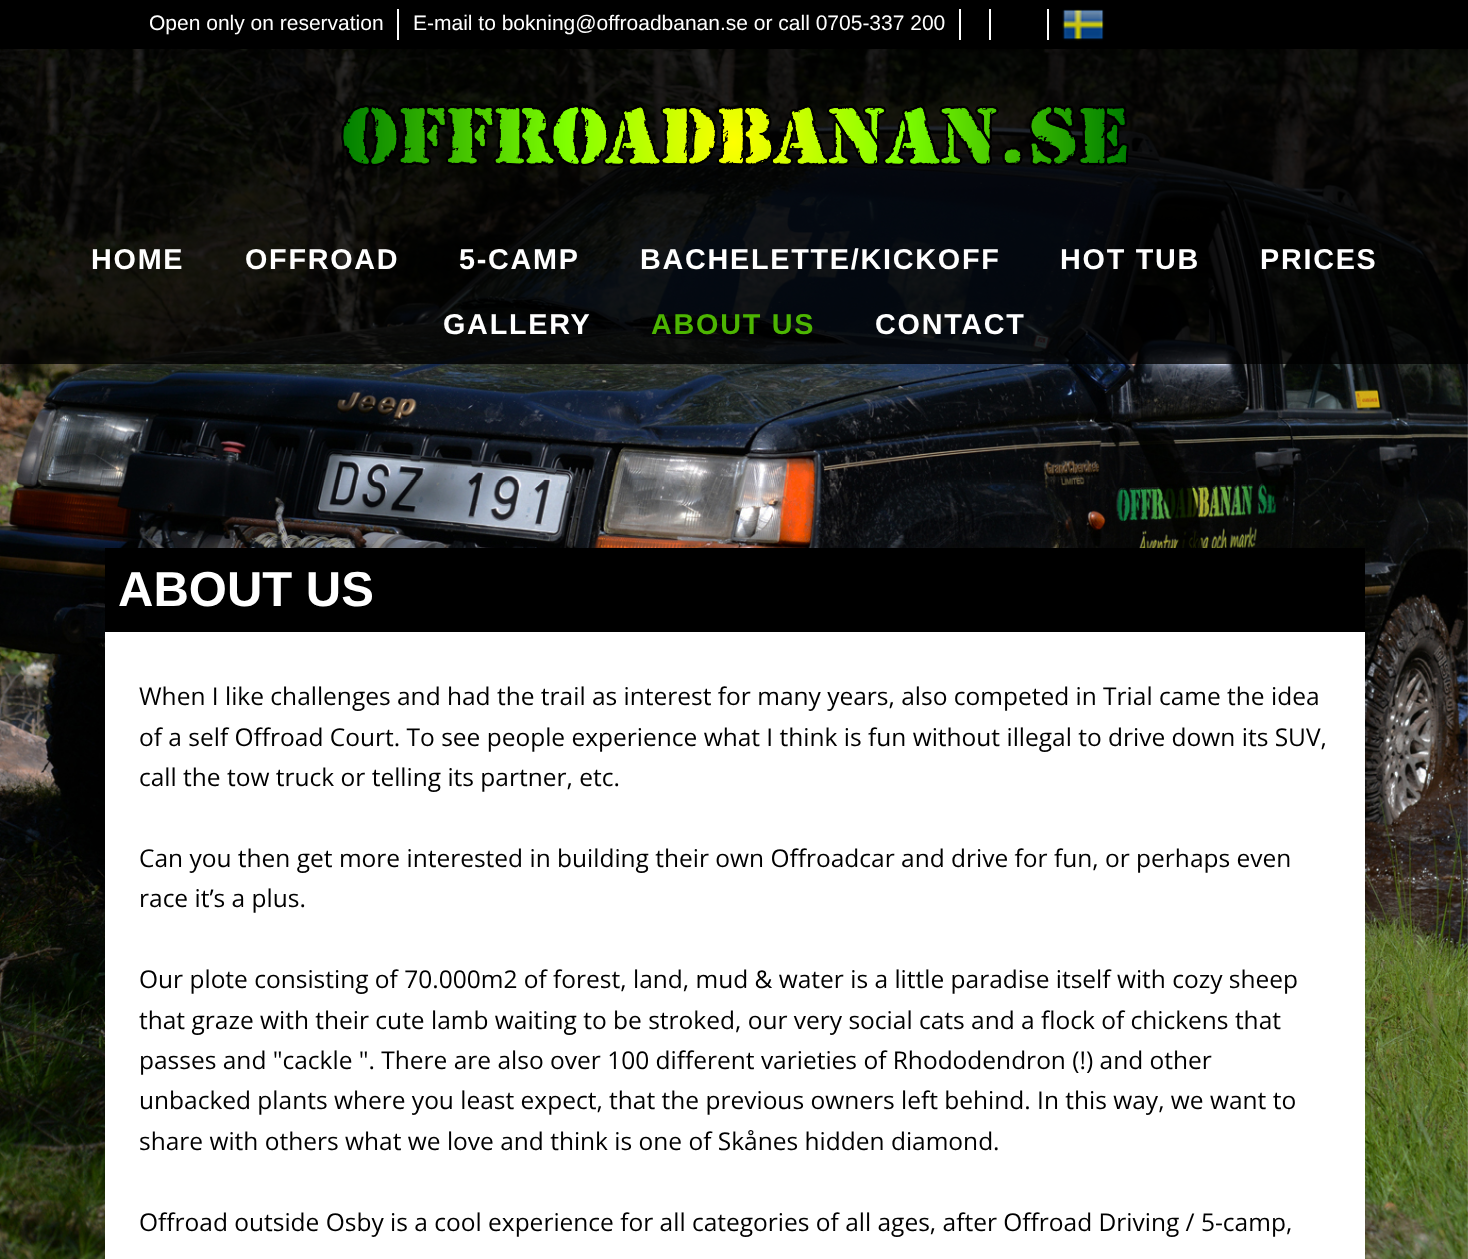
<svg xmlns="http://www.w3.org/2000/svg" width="1468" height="1259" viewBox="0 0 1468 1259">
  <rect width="100%" height="100%" fill="#fff"/>
  <image x="0" y="49" width="1468" height="1210" href="img/1.png"/>
  <path d="M0 0h1468v49H0z" fill="#000"/>
  <path d="M397 9h2v31H397z" fill="#fff"/>
  <path d="M959 9h2v31H959z" fill="#fff"/>
  <path d="M989 9h2v31H989z" fill="#fff"/>
  <path d="M1047 9h2v31H1047z" fill="#fff"/>
  <image x="1062" y="9" width="43" height="32" href="img/2.png"/>
  <path d="M0 49h1468v315H0z" fill="#000000cc"/>
  <image x="341" y="105" width="788" height="61" href="img/3.png"/>
  <path d="M105 632h1260v627H105z" fill="#fff"/>
  <path d="M105 548h1260v84H105z" fill="#000"/>
  <g font-family="Liberation Sans" font-size="21" fill="#fff">
    <text x="149" y="30">Open only on reservation</text>
    <text x="413" y="30">E-mail to bokning@offroadbanan.se or call 0705-337 200</text>
  </g>
  <g font-family="Liberation Sans" font-size="28.75" font-weight="bold" letter-spacing="1.75" fill="#fff">
    <text x="91" y="269">HOME</text>
    <text x="245" y="269">OFFROAD</text>
    <text x="459" y="269">5-CAMP</text>
    <text x="640" y="269">BACHELETTE/KICKOFF</text>
    <text x="1060" y="269">HOT TUB</text>
    <text x="1260" y="269">PRICES</text>
    <text x="443" y="334">GALLERY</text>
  </g>
  <text x="651" y="334" font-family="Liberation Sans" font-size="28.75" font-weight="bold" letter-spacing="1.75" fill="#4db502">ABOUT US</text>
  <text x="875" y="334" font-family="Liberation Sans" font-size="28.75" font-weight="bold" letter-spacing="1.75" fill="#fff">CONTACT</text>
  <text x="118" y="606" font-family="Liberation Sans" font-size="49" font-weight="bold" fill="#fff">ABOUT US</text>
  <g font-family="Open Sans" font-size="24.5" fill="#000">
    <text x="139" y="705">When I like challenges and had the trail as interest for many years, also competed in Trial came the idea</text>
    <text x="139" y="746">of a self Offroad Court. To see people experience what I think is fun without illegal to drive down its SUV,</text>
    <text x="139" y="786">call the tow truck or telling its partner, etc.</text>
    <text x="139" y="867">Can you then get more interested in building their own Offroadcar and drive for fun, or perhaps even</text>
    <text x="139" y="907">race it’s a plus.</text>
    <text x="139" y="988">Our plote consisting of 70.000m2 of forest, land, mud &amp; water is a little paradise itself with cozy sheep</text>
    <text x="139" y="1029">that graze with their cute lamb waiting to be stroked, our very social cats and a flock of chickens that</text>
    <text x="139" y="1069">passes and "cackle ". There are also over 100 different varieties of Rhododendron (!) and other</text>
    <text x="139" y="1109">unbacked plants where you least expect, that the previous owners left behind. In this way, we want to</text>
    <text x="139" y="1150">share with others what we love and think is one of Skånes hidden diamond.</text>
    <text x="139" y="1231">Offroad outside Osby is a cool experience for all categories of all ages, after Offroad Driving / 5-camp,</text>
  </g>
</svg>
